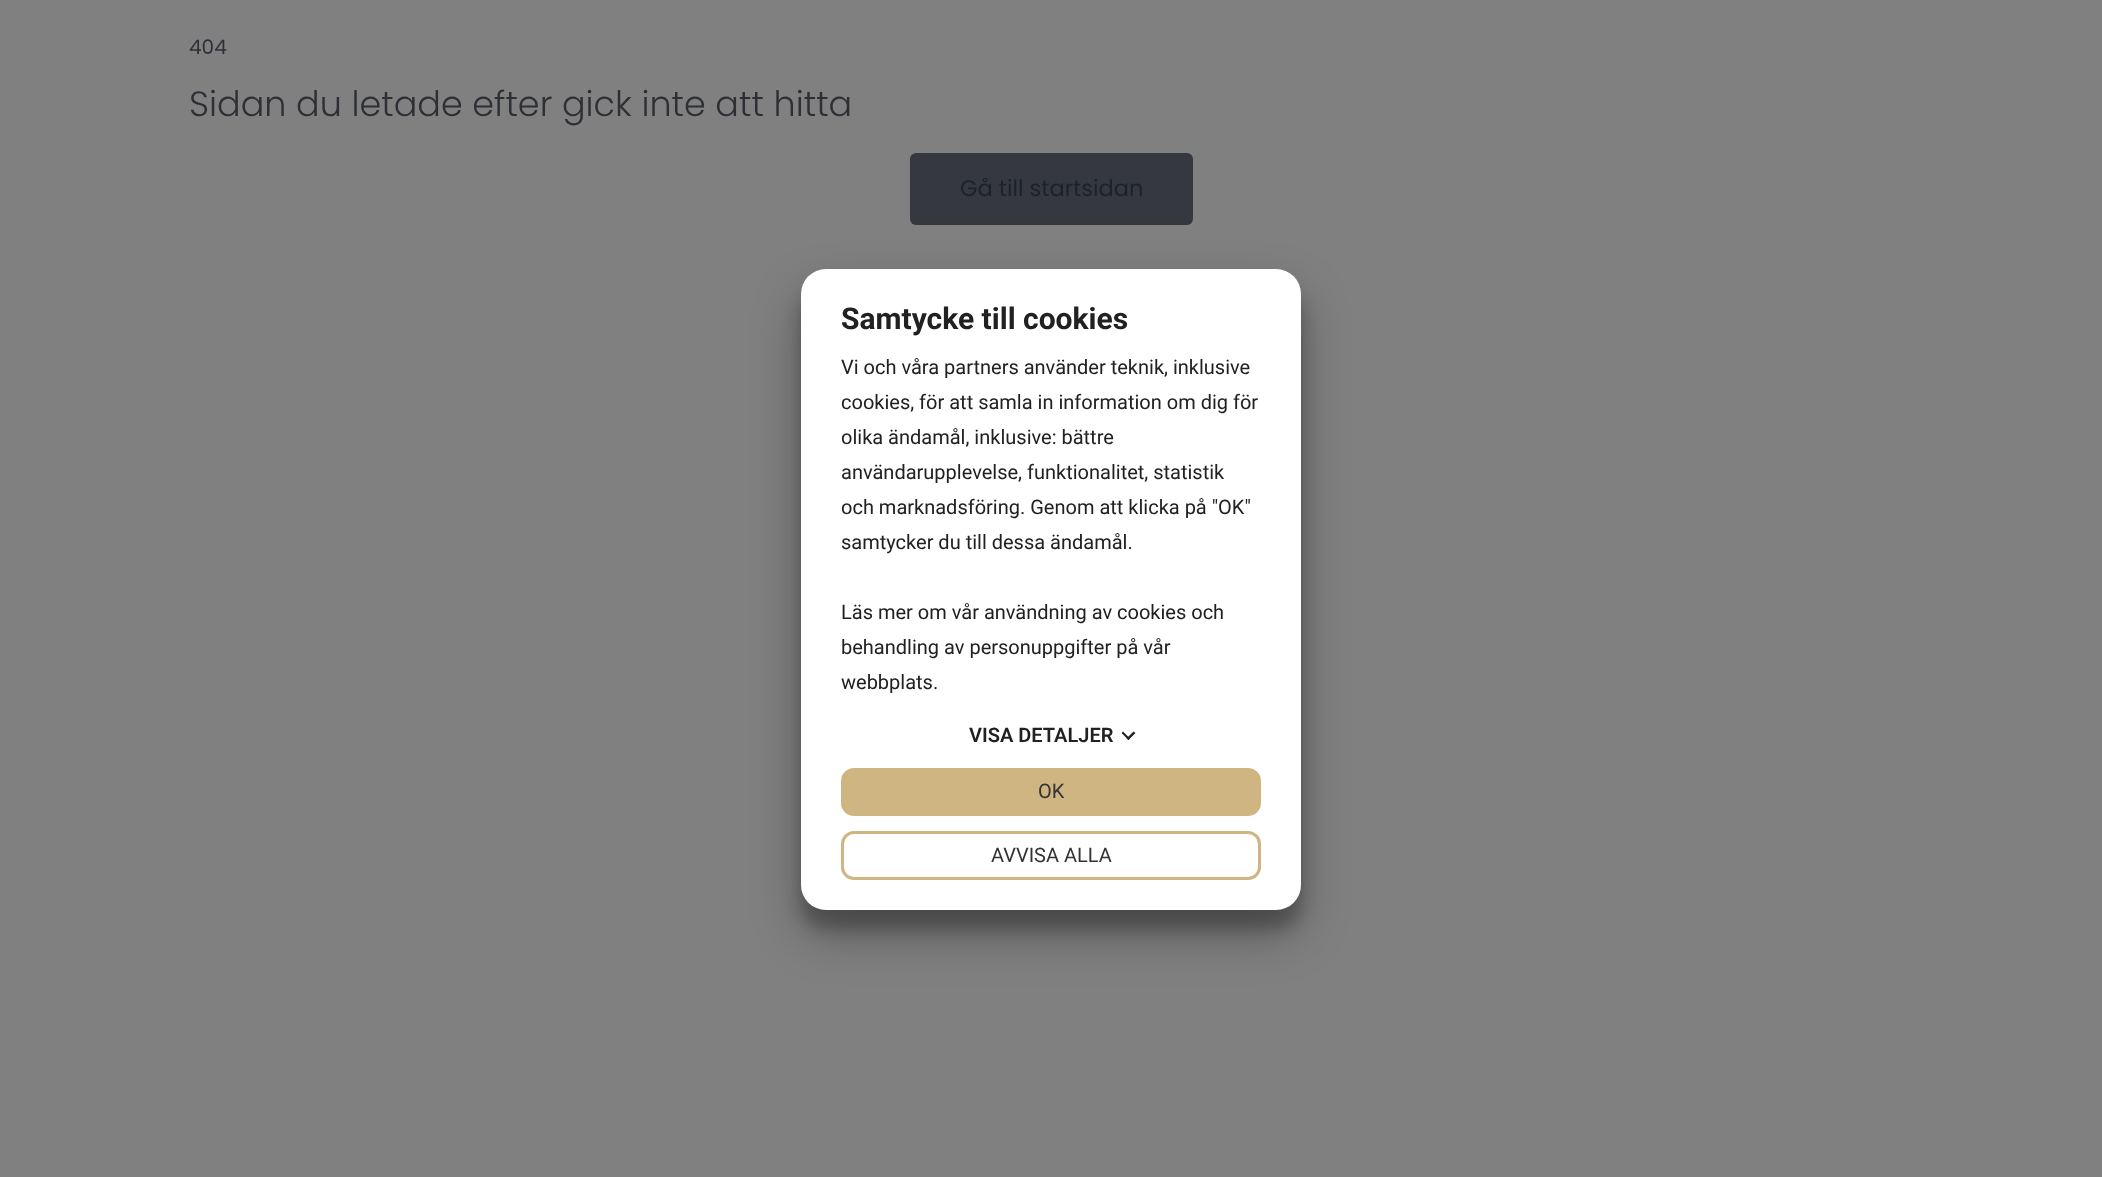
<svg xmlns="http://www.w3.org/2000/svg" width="2102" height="1177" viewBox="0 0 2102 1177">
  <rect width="100%" height="100%" fill="#808080"/>
  <rect x="910" y="153" width="283" height="72" rx="6" fill="#35393f"/>
  <rect x="801" y="288" width="500" height="641" rx="25" fill="#00000038" filter="blur(7.5px)"/>
  <rect x="801" y="293" width="500" height="641" rx="25" fill="#0000004d" filter="blur(24px)"/>
  <rect x="801" y="269" width="500" height="641" rx="25" fill="#fff"/>
  <path d="M1133.5 731.5L1135.5 733L1128.5 740L1126.5 738.5Z" fill="#212121"/>
  <path d="M1123 731.5L1130 738.5L1128.5 740L1121.5 733Z" fill="#212121"/>
  <rect x="842.5" y="769.5" width="417" height="45" rx="11.5" fill="#ceb582" stroke="#ceb582" stroke-width="3"/>
  <rect x="842.5" y="832.5" width="417" height="46" rx="11.5" fill="none" stroke="#ceb582" stroke-width="3"/>
  <text x="189" y="54" font-family="Poppins" font-size="20" fill="#2d2f35">404</text>
  <text x="189" y="116" font-family="Poppins" font-size="35" font-weight="300" fill="#2d2f35">Sidan du letade efter gick inte att hitta</text>
  <text x="960" y="196" font-family="Poppins" font-size="22.5" fill="#1d2228">Gå till startsidan</text>
  <text x="841" y="329" font-family="Roboto" font-size="30" font-weight="bold" fill="#212121">Samtycke till cookies</text>
  <g font-family="Roboto" font-size="20" fill="#212121">
    <text x="841" y="374">Vi och våra partners använder teknik, inklusive</text>
    <text x="841" y="409">cookies, för att samla in information om dig för</text>
    <text x="841" y="444">olika ändamål, inklusive: bättre</text>
    <text x="841" y="479">användarupplevelse, funktionalitet, statistik</text>
    <text x="841" y="514">och marknadsföring. Genom att klicka på "OK"</text>
    <text x="841" y="549">samtycker du till dessa ändamål.</text>
    <text x="841" y="619">Läs mer om vår användning av cookies och</text>
    <text x="841" y="654">behandling av personuppgifter på vår</text>
    <text x="841" y="689">webbplats.</text>
  </g>
  <text x="969" y="742" font-family="Roboto" font-size="20" font-weight="600" fill="#212121">VISA DETALJER</text>
  <g font-family="Roboto" font-size="20" fill="#333">
    <text x="1038" y="798">OK</text>
    <text x="991" y="862">AVVISA ALLA</text>
  </g>
</svg>
